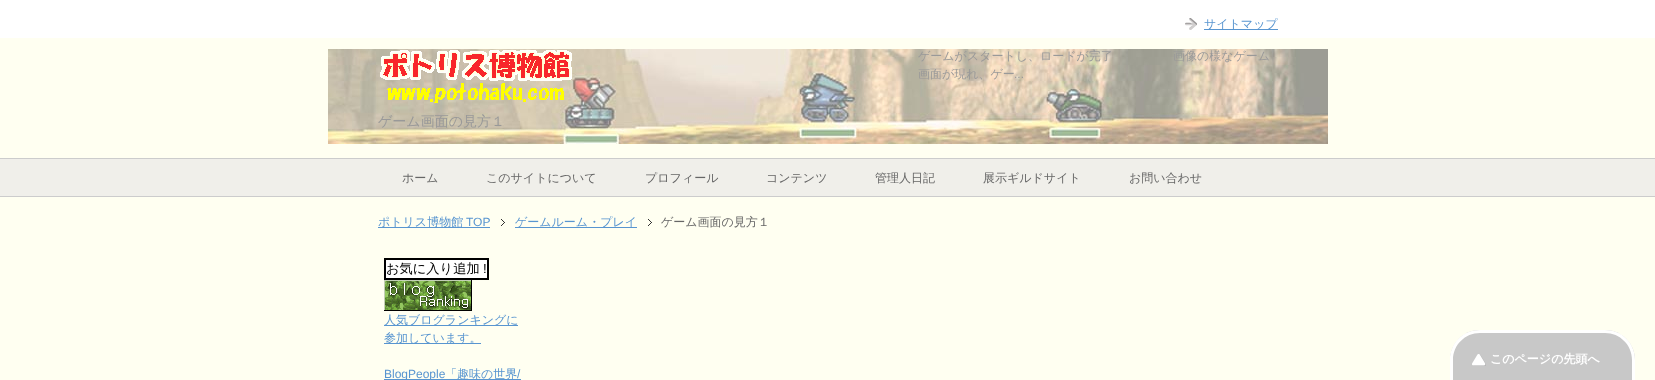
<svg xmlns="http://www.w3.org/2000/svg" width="1655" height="380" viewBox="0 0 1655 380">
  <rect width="100%" height="100%" fill="#fff"/>
  <path d="M0 38h1655v342H0z" fill="#fffff1"/>
  <image x="1185" y="18" width="12" height="12" href="img/1.png"/>
  <path d="M1204 29h74v1H1204z" fill="#5895d0"/>
  <image x="328" y="49" width="1000" height="95" href="img/2.png"/>
  <image x="380" y="50" width="192" height="53" href="img/3.png"/>
  <path d="M0 159h1655v37H0z" fill="#f0efea"/>
  <path d="M0 158h1655v1H0z" fill="#ccc"/>
  <path d="M0 196h1655v1H0z" fill="#ccc"/>
  <path d="M378 227h112v1H378z" fill="#5895d0"/>
  <image x="501" y="219" width="4" height="7" href="img/4.png"/>
  <path d="M515 227h122v1H515z" fill="#5895d0"/>
  <image x="648" y="219" width="4" height="7" href="img/4.png"/>
  <path d="M385 259h103v20H385z" fill="#fff" stroke="#000" stroke-width="2"/>
  <image x="384" y="280" width="88" height="31" href="img/5.png"/>
  <path d="M384 325h134v1H384z" fill="#5895d0"/>
  <path d="M384 343h97v1H384z" fill="#5895d0"/>
  <path d="M384 379h137v1H384z" fill="#5895d0"/>
  <path d="M1480 330H1605C1621.5 330 1635 343.5 1635 360V380H1450V360C1450 343.5 1463.5 330 1480 330Z" fill="#c8c8c8"/>
  <image x="1472" y="354" width="14" height="12" href="img/6.png"/>
  <path d="M1480 330H1605C1622 330 1635 343 1635 360V380H1450V360C1450 343 1463 330 1480 330ZM1480 333H1605C1620 333 1632 345 1632 360V380H1453V360C1453 345 1465 333 1480 333Z" fill="#fff" fill-rule="evenodd"/>
  <text x="1204" y="28" font-family="WenQuanYi Zen Hei" font-size="12" font-weight="500" fill="#5895d0">サイトマップ</text>
  <g font-family="WenQuanYi Zen Hei" font-size="12" font-weight="500" fill="#999">
    <text x="918" y="60">ゲームがスタートし、ロードが完了</text>
    <text x="1173" y="60">画像の様なゲーム</text>
    <text x="918" y="78">画面が現れ、ゲー</text>
  </g>
  <text x="1014" y="78" font-family="Liberation Sans" font-size="12" fill="#999">...</text>
  <text x="378" y="126" font-family="WenQuanYi Zen Hei" font-size="14" font-weight="500" fill="#999">ゲーム画面の見方１</text>
  <g font-family="WenQuanYi Zen Hei" font-size="12" font-weight="500" fill="#666">
    <text x="402" y="182">ホーム</text>
    <text x="486" y="182">このサイトについて</text>
    <text x="645" y="182">プロフィール</text>
    <text x="766" y="182">コンテンツ</text>
    <text x="875" y="182">管理人日記</text>
    <text x="983" y="182">展示ギルドサイト</text>
    <text x="1129" y="182">お問い合わせ</text>
  </g>
  <text x="378" y="226" font-family="WenQuanYi Zen Hei" font-size="12" font-weight="500" fill="#5895d0">ポトリス博物館</text>
  <text x="466" y="226" font-family="Liberation Sans" font-size="12" fill="#5895d0">TOP</text>
  <text x="515" y="226" font-family="WenQuanYi Zen Hei" font-size="12" font-weight="500" fill="#5895d0">ゲームルーム・プレイ</text>
  <text x="661" y="226" font-family="WenQuanYi Zen Hei" font-size="12" font-weight="500" fill="#666">ゲーム画面の見方１</text>
  <text x="386" y="273" font-family="WenQuanYi Zen Hei" font-size="13.25" font-weight="500" fill="#000">お気に入り追加</text>
  <text x="483" y="273" font-family="Liberation Sans" font-size="13.25" fill="#000">!</text>
  <g font-family="WenQuanYi Zen Hei" font-size="12" font-weight="500" fill="#5895d0">
    <text x="384" y="324">人気ブログランキングに</text>
    <text x="384" y="342">参加しています。</text>
  </g>
  <text x="384" y="378" font-family="Liberation Sans" font-size="12" fill="#5895d0">BlogPeople</text>
  <text x="445" y="378" font-family="WenQuanYi Zen Hei" font-size="12" font-weight="500" fill="#5895d0">「趣味の世界</text>
  <text x="517" y="378" font-family="Liberation Sans" font-size="12" fill="#5895d0">/</text>
  <text x="1490" y="363" font-family="WenQuanYi Zen Hei" font-size="12" font-weight="bold" fill="#fff">このページの先頭へ</text>
</svg>
